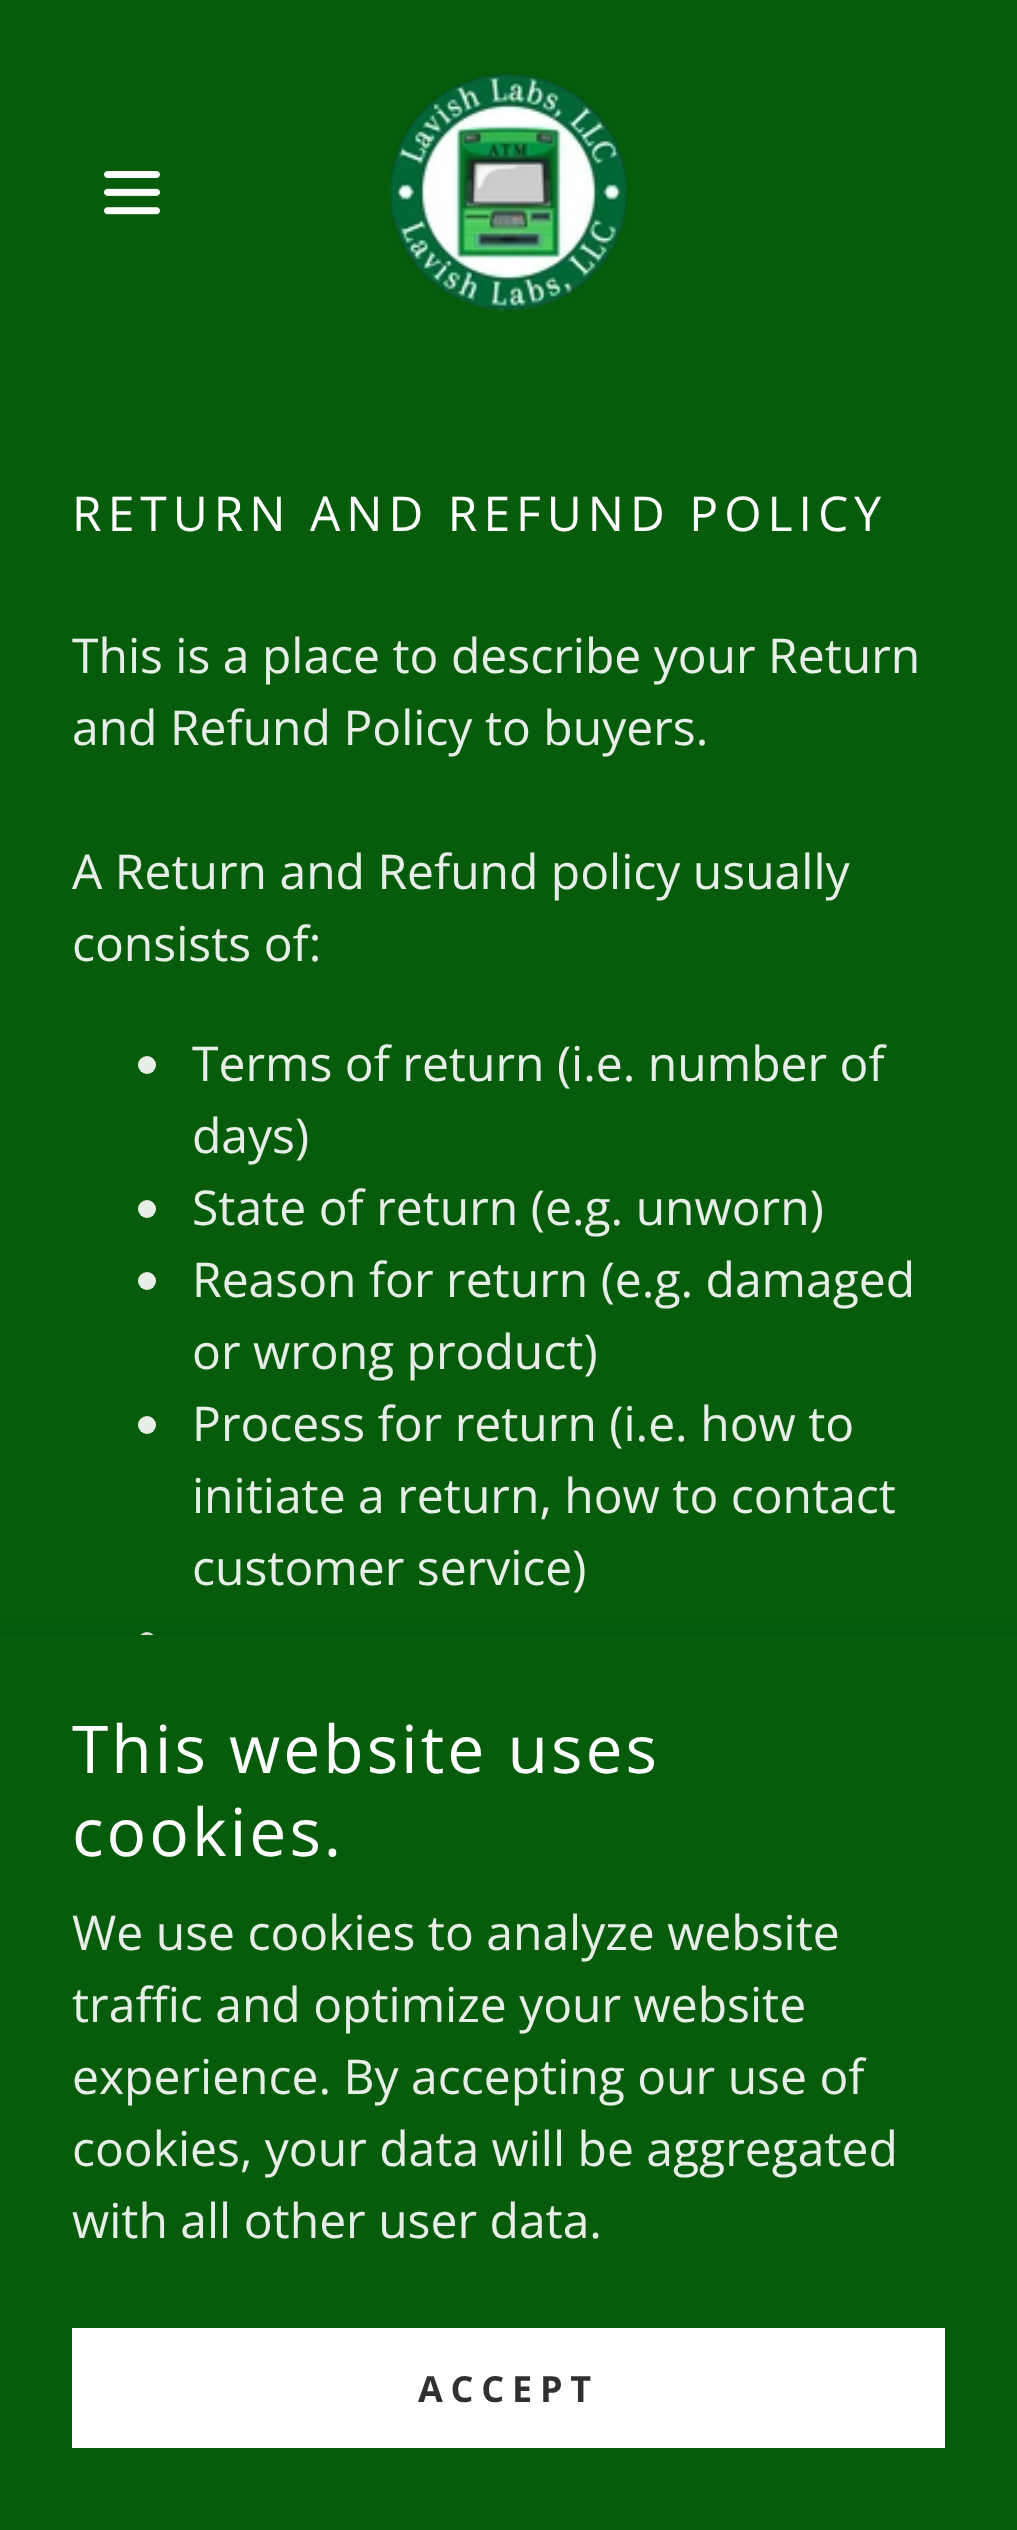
<svg xmlns="http://www.w3.org/2000/svg" width="1017" height="2530" viewBox="0 0 1017 2530">
  <rect width="100%" height="100%" fill="#065c0b"/>
  <image x="104" y="171" width="56" height="44" href="img/1.png"/>
  <image x="390" y="72" width="237" height="240" href="img/2.png"/>
  <circle cx="147" cy="1065" r="9" fill="#e7eee7"/>
  <circle cx="147" cy="1209" r="9" fill="#e7eee7"/>
  <circle cx="147" cy="1281" r="9" fill="#e7eee7"/>
  <circle cx="147" cy="1425" r="9" fill="#e7eee7"/>
  <circle cx="147" cy="1641" r="9" fill="#e7eee7"/>
  <path d="M0 1641h1017v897H0z" fill="#0000004d" filter="blur(9px)"/>
  <path d="M0 1635h1017v895H0z" fill="#065c0b"/>
  <path d="M72 2328h873v120H72z" fill="#fff"/>
  <text x="72" y="531" font-family="Open Sans" font-size="48" letter-spacing="6" fill="#fff">RETURN AND REFUND POLICY</text>
  <g font-family="Open Sans" font-size="48" fill="#e7eee7">
    <text x="72" y="673">This is a place to describe your Return</text>
    <text x="72" y="745">and Refund Policy to buyers.</text>
    <text x="72" y="889">A Return and Refund policy usually</text>
    <text x="72" y="961">consists of:</text>
    <text x="192" y="1081">Terms of return (i.e. number of</text>
    <text x="192" y="1153">days)</text>
    <text x="192" y="1225">State of return (e.g. unworn)</text>
    <text x="192" y="1297">Reason for return (e.g. damaged</text>
    <text x="192" y="1369">or wrong product)</text>
    <text x="192" y="1441">Process for return (i.e. how to</text>
    <text x="192" y="1513">initiate a return, how to contact</text>
    <text x="192" y="1585">customer service)</text>
  </g>
  <g font-family="Open Sans" font-size="66" letter-spacing="3" fill="#fff">
    <text x="72" y="1773">This website uses</text>
    <text x="72" y="1856">cookies.</text>
  </g>
  <g font-family="Open Sans" font-size="48" fill="#e7eee7">
    <text x="72" y="1950">We use cookies to analyze website</text>
    <text x="72" y="2022">traffic and optimize your website</text>
    <text x="72" y="2094">experience. By accepting our use of</text>
    <text x="72" y="2166">cookies, your data will be aggregated</text>
    <text x="72" y="2238">with all other user data.</text>
  </g>
  <text x="418" y="2402" font-family="Open Sans" font-size="36" font-weight="bold" letter-spacing="7.75" fill="#303030">ACCEPT</text>
</svg>
